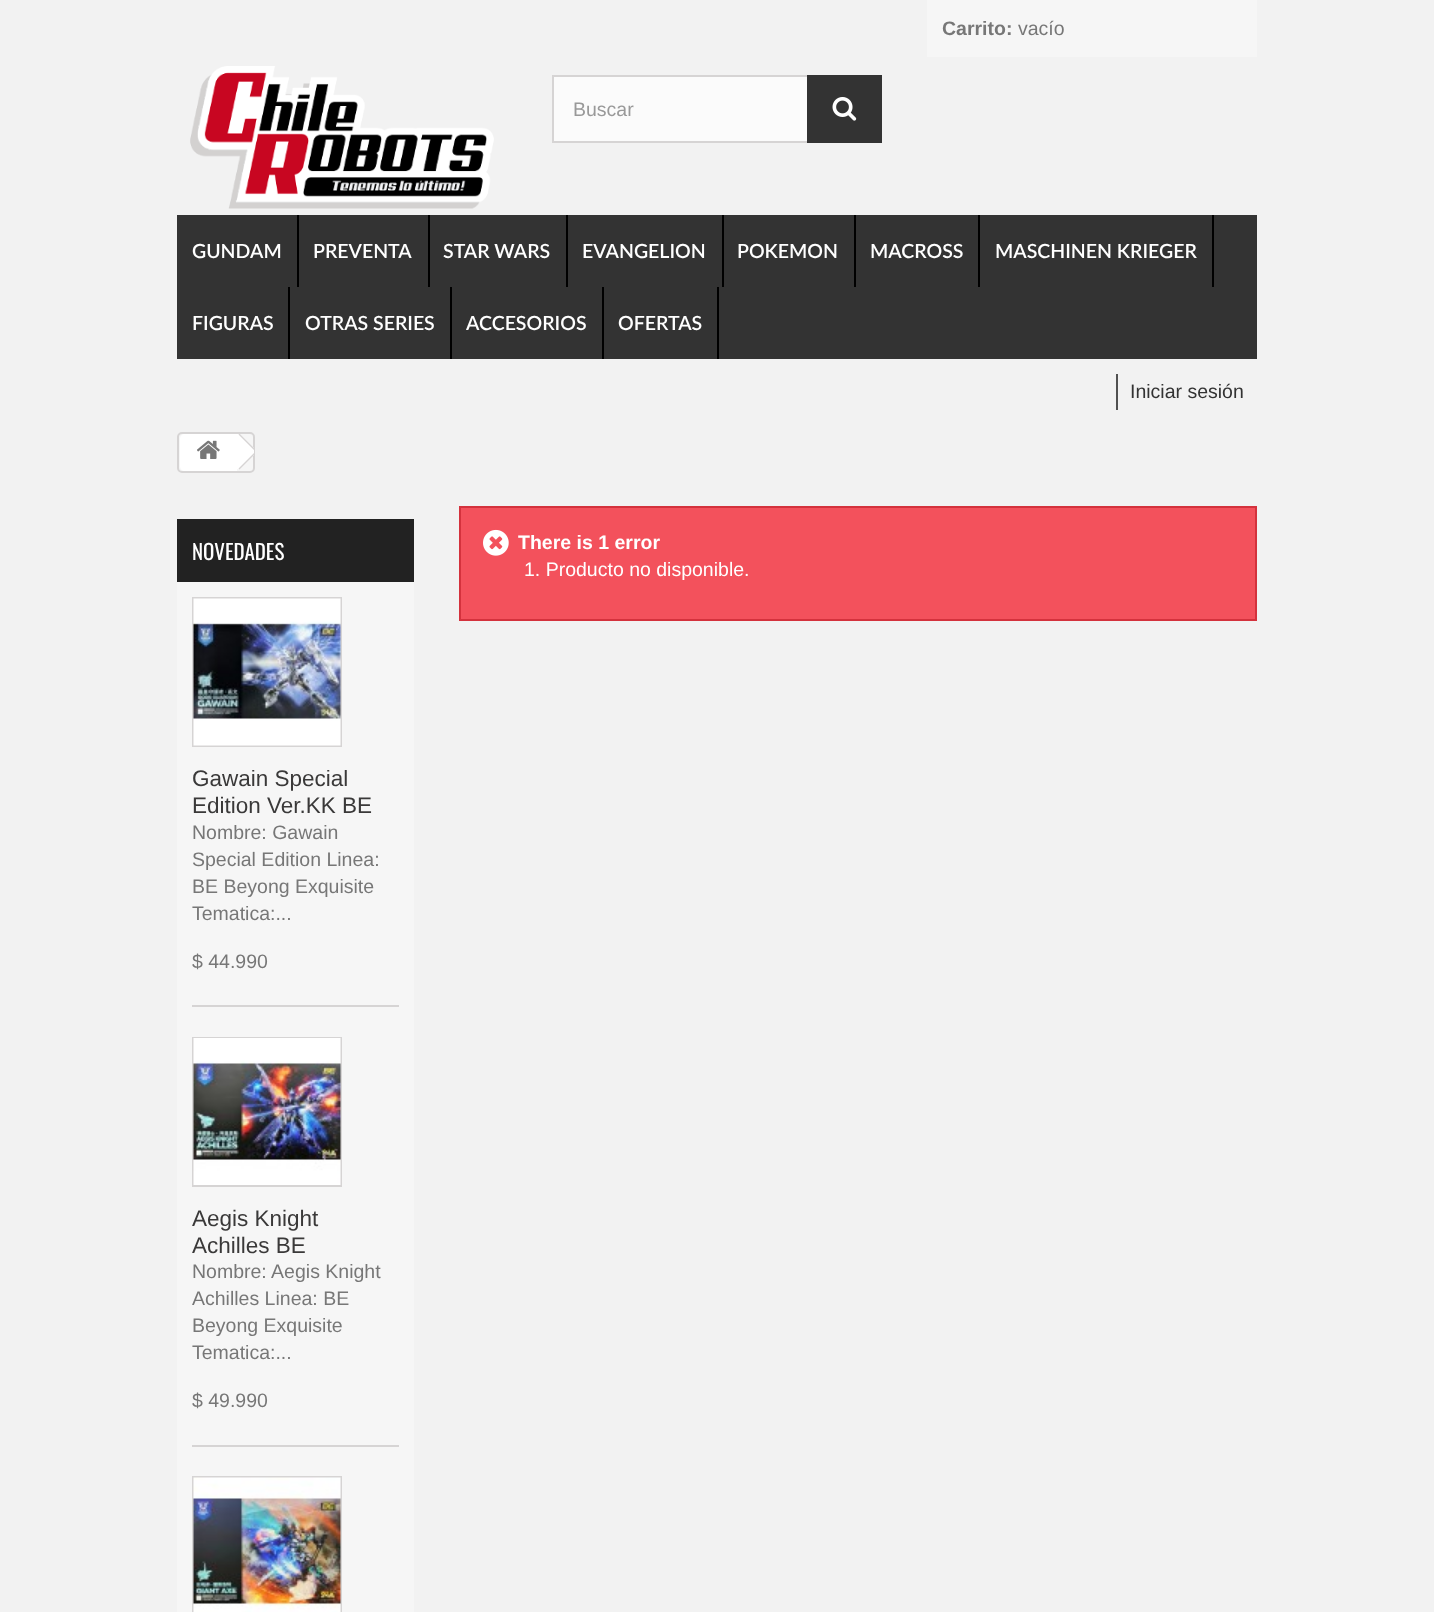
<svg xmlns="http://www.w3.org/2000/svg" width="1434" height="1612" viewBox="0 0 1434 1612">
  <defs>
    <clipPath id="clip1"><path d="M192 770h207v205H192z"/></clipPath>
  </defs>
  <rect width="100%" height="100%" fill="#f2f2f2"/>
  <path d="M927 0h330v57H927z" fill="#f6f6f6"/>
  <image x="190" y="66" width="304" height="143" href="img/1.png"/>
  <path d="M554 77h253v64H554z" fill="#fbfbfb"/>
  <path d="M553 76h328v66H553z" fill="none" stroke="#d6d4d4" stroke-width="2"/>
  <path d="M807 75h75v68H807z" fill="#333"/>
  <image x="832" y="97" width="25" height="24" href="img/2.png"/>
  <path d="M177 215h1080v144H177z" fill="#333"/>
  <path d="M297 215h2v72H297z" fill="#000"/>
  <path d="M428 215h2v72H428z" fill="#000"/>
  <path d="M566 215h2v72H566z" fill="#000"/>
  <path d="M722 215h2v72H722z" fill="#000"/>
  <path d="M854 215h2v72H854z" fill="#000"/>
  <path d="M978 215h2v72H978z" fill="#000"/>
  <path d="M1212 215h2v72H1212z" fill="#000"/>
  <path d="M288 287h2v72H288z" fill="#000"/>
  <path d="M450 287h2v72H450z" fill="#000"/>
  <path d="M602 287h2v72H602z" fill="#000"/>
  <path d="M717 287h2v72H717z" fill="#000"/>
  <path d="M1116 374h2v36H1116z" fill="#515151"/>
  <rect x="178" y="433" width="76" height="39" rx="4" fill="#f6f6f6" stroke="#d6d4d4" stroke-width="2"/>
  <path d="M185 434H237V471H185C182 471 180 469 180 466V439C180 436 182 434 185 434Z" fill="#fff"/>
  <image x="197" y="440" width="23" height="19" href="img/3.png"/>
  <path d="M240.5 434.5L240 434H237L236.5 434.5L221.5 449.5C220.5 450.5 220.5 452.5 221.5 453.5L236.5 468.5C237.5 469.5 239.5 469.5 240.5 468.5L254 455V448Z" fill="#fff"/>
  <path d="M254 450L238.5 434.5L239 434H240L254 448ZM254 453V455L239.5 469.5L238.5 468.5Z" fill="#d6d4d4"/>
  <path d="M177 519h237v63H177z" fill="#222"/>
  <path d="M177 582h237v1030H177z" fill="#f6f6f6"/>
  <path d="M192 1005h207v2H192z" fill="#d6d4d4"/>
  <path d="M193 598h148v148H193z" fill="none" stroke="#d6d4d4" stroke-width="2"/>
  <image x="193" y="598" width="148" height="148" href="img/4.png"/>
  <path d="M192 1445h207v2H192z" fill="#d6d4d4"/>
  <path d="M193 1038h148v148H193z" fill="none" stroke="#d6d4d4" stroke-width="2"/>
  <image x="193" y="1038" width="148" height="147" href="img/5.png"/>
  <path d="M193 1477h148v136H193z" fill="none" stroke="#d6d4d4" stroke-width="2"/>
  <image x="193" y="1477" width="148" height="135" href="img/6.png"/>
  <path d="M460 507h796v113H460z" fill="#f3515c" stroke="#d4323d" stroke-width="2"/>
  <image x="483" y="529" width="26" height="27" href="img/7.png"/>
  <text x="942" y="35" font-family="Liberation Sans" font-size="19.5" font-weight="bold" fill="#777">Carrito:</text>
  <text x="1018" y="35" font-family="Liberation Sans" font-size="19.5" fill="#777">vacío</text>
  <text x="573" y="116" font-family="Liberation Sans" font-size="19.5" fill="#999">Buscar</text>
  <g font-family="Lato" font-size="19.5" font-weight="600" fill="#fff">
    <text x="192" y="258">GUNDAM</text>
    <text x="313" y="258">PREVENTA</text>
    <text x="443" y="258">STAR WARS</text>
    <text x="582" y="258">EVANGELION</text>
    <text x="737" y="258">POKEMON</text>
    <text x="870" y="258">MACROSS</text>
    <text x="995" y="258">MASCHINEN KRIEGER</text>
    <text x="192" y="330">FIGURAS</text>
    <text x="305" y="330">OTRAS SERIES</text>
    <text x="466" y="330">ACCESORIOS</text>
    <text x="618" y="330">OFERTAS</text>
  </g>
  <text x="1130" y="398" font-family="Liberation Sans" font-size="19.5" fill="#333">Iniciar sesión</text>
  <text x="192" y="560" font-family="Oswald" font-size="21" fill="#fff">NOVEDADES</text>
  <g clip-path="url(#clip1)">
    <text x="192" y="786" font-family="Liberation Sans" font-size="22.5" fill="#3a3939">Gawain Special</text>
  </g>
  <text x="192" y="813" font-family="Liberation Sans" font-size="22.5" fill="#3a3939">Edition Ver.KK BE</text>
  <g font-family="Liberation Sans" font-size="19.5" fill="#777">
    <text x="192" y="839">Nombre: Gawain</text>
    <text x="192" y="866">Special Edition Linea:</text>
    <text x="192" y="893">BE Beyong Exquisite</text>
    <text x="192" y="920">Tematica:...</text>
    <text x="192" y="968">$ 44.990</text>
  </g>
  <g font-family="Liberation Sans" font-size="22.5" fill="#3a3939">
    <text x="192" y="1226">Aegis Knight</text>
    <text x="192" y="1253">Achilles BE</text>
  </g>
  <g font-family="Liberation Sans" font-size="19.5" fill="#777">
    <text x="192" y="1278">Nombre: Aegis Knight</text>
    <text x="192" y="1305">Achilles Linea: BE</text>
    <text x="192" y="1332">Beyong Exquisite</text>
    <text x="192" y="1359">Tematica:...</text>
    <text x="192" y="1407">$ 49.990</text>
  </g>
  <text x="518" y="549" font-family="Liberation Sans" font-size="19.5" font-weight="bold" fill="#fff">There is 1 error</text>
  <text x="524" y="576" font-family="Liberation Sans" font-size="19.5" fill="#fff">1. Producto no disponible.</text>
</svg>
